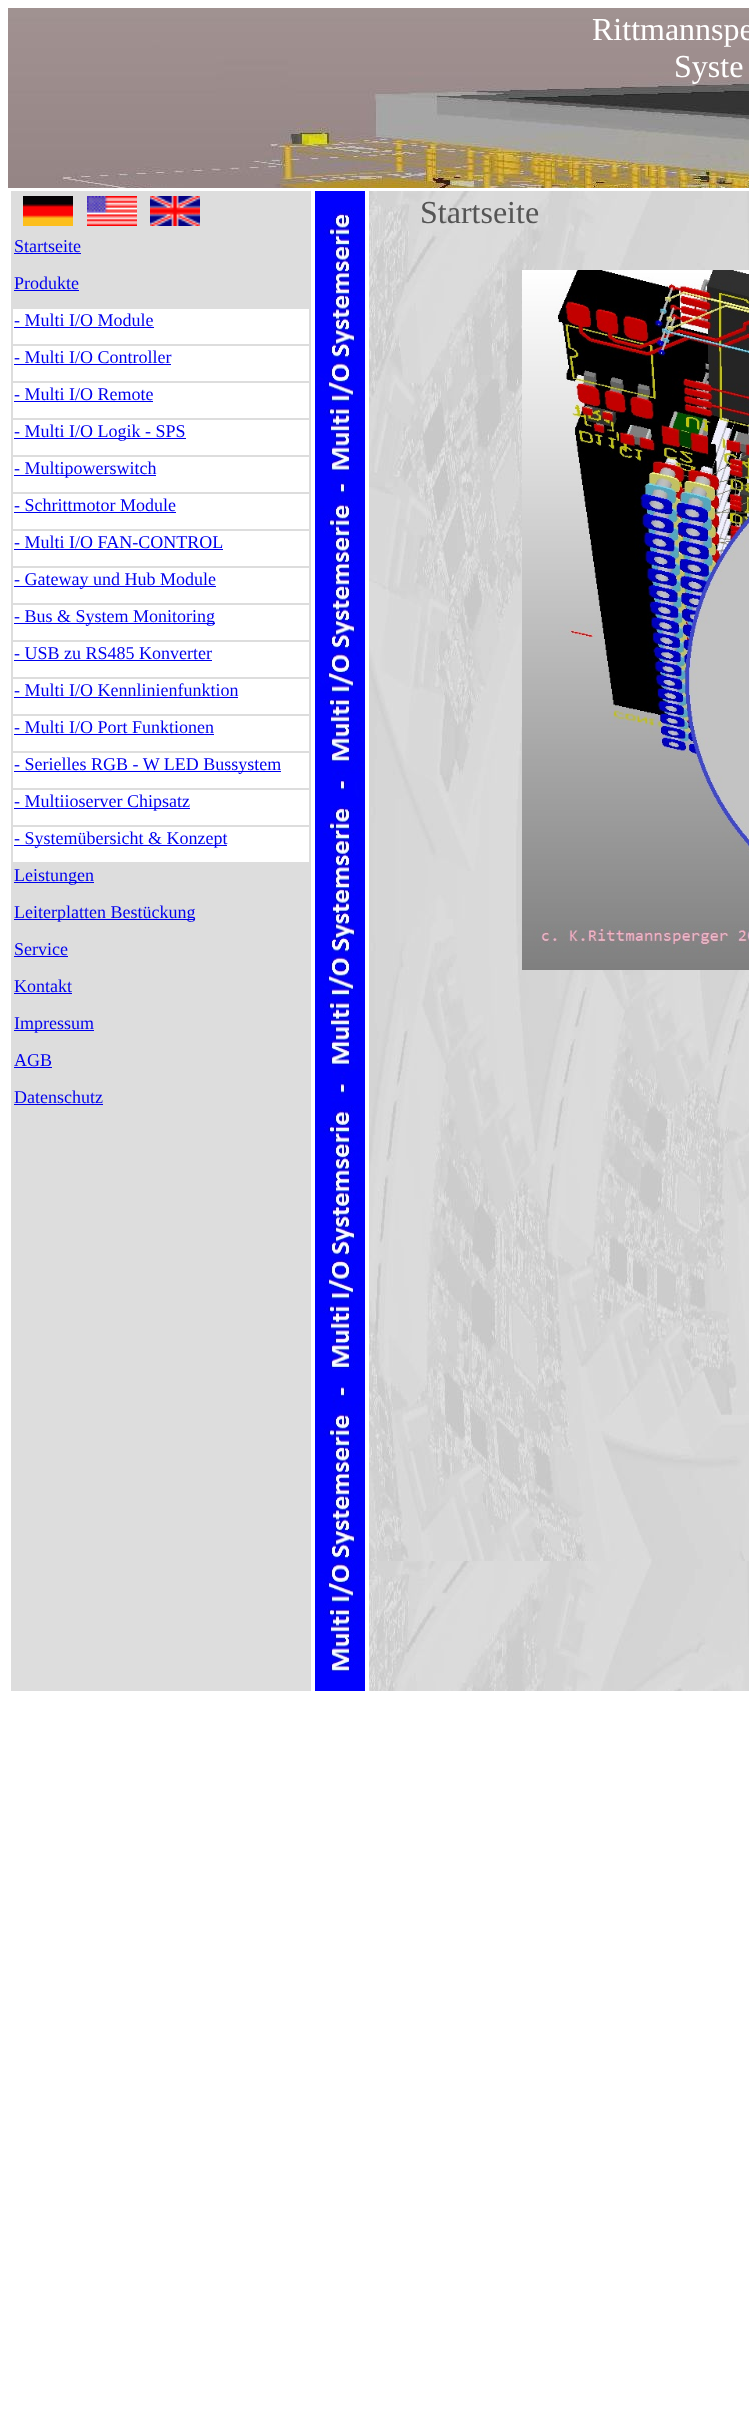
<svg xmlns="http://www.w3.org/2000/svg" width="749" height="2409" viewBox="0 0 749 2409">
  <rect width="100%" height="100%" fill="#fff"/>
  <image x="8" y="8" width="741" height="180" href="img/1.png"/>
  <image x="315" y="191" width="50" height="1500" href="img/2.png"/>
  <image x="369" y="191" width="380" height="1500" href="img/3.png"/>
  <image x="522" y="270" width="227" height="700" href="img/4.png"/>
  <path d="M11 191h300v1500H11z" fill="#ddd"/>
  <image x="23" y="196" width="50" height="30" href="img/5.png"/>
  <image x="87" y="196" width="50" height="30" href="img/6.png"/>
  <image x="150" y="196" width="50" height="30" href="img/7.png"/>
  <path d="M14 253h67v1H14z" fill="#00e"/>
  <path d="M14 290h65v1H14z" fill="#00e"/>
  <path d="M13 309h296v35H13z" fill="#fff"/>
  <path d="M14 327h140v1H14z" fill="#00e"/>
  <path d="M13 346h296v35H13z" fill="#fff"/>
  <path d="M14 364h157v1H14z" fill="#00e"/>
  <path d="M13 383h296v35H13z" fill="#fff"/>
  <path d="M14 401h139v1H14z" fill="#00e"/>
  <path d="M13 420h296v35H13z" fill="#fff"/>
  <path d="M14 438h172v1H14z" fill="#00e"/>
  <path d="M13 457h296v35H13z" fill="#fff"/>
  <path d="M14 475h142v1H14z" fill="#00e"/>
  <path d="M13 494h296v35H13z" fill="#fff"/>
  <path d="M14 512h162v1H14z" fill="#00e"/>
  <path d="M13 531h296v35H13z" fill="#fff"/>
  <path d="M14 549h209v1H14z" fill="#00e"/>
  <path d="M13 568h296v35H13z" fill="#fff"/>
  <path d="M14 586h202v1H14z" fill="#00e"/>
  <path d="M13 605h296v35H13z" fill="#fff"/>
  <path d="M14 623h201v1H14z" fill="#00e"/>
  <path d="M13 642h296v35H13z" fill="#fff"/>
  <path d="M14 660h198v1H14z" fill="#00e"/>
  <path d="M13 679h296v35H13z" fill="#fff"/>
  <path d="M14 697h224v1H14z" fill="#00e"/>
  <path d="M13 716h296v35H13z" fill="#fff"/>
  <path d="M14 734h200v1H14z" fill="#00e"/>
  <path d="M13 753h296v35H13z" fill="#fff"/>
  <path d="M14 771h267v1H14z" fill="#00e"/>
  <path d="M13 790h296v35H13z" fill="#fff"/>
  <path d="M14 808h176v1H14z" fill="#00e"/>
  <path d="M13 827h296v35H13z" fill="#fff"/>
  <path d="M14 845h213v1H14z" fill="#00e"/>
  <path d="M14 882h80v1H14z" fill="#00e"/>
  <path d="M14 919h181v1H14z" fill="#00e"/>
  <path d="M14 956h54v1H14z" fill="#00e"/>
  <path d="M14 993h58v1H14z" fill="#00e"/>
  <path d="M14 1030h80v1H14z" fill="#00e"/>
  <path d="M14 1067h38v1H14z" fill="#00e"/>
  <path d="M14 1104h89v1H14z" fill="#00e"/>
  <g font-family="Liberation Serif" font-size="32" fill="#fff">
    <text x="592" y="40">Rittmannspe</text>
    <text x="674" y="77">Syste</text>
  </g>
  <text x="420" y="223" font-family="Liberation Serif" font-size="32" fill="#555">Startseite</text>
  <g font-family="Liberation Serif" font-size="18" fill="#00e">
    <text x="14" y="252">Startseite</text>
    <text x="14" y="289">Produkte</text>
    <text x="14" y="326">- Multi I/O Module</text>
    <text x="14" y="363">- Multi I/O Controller</text>
    <text x="14" y="400">- Multi I/O Remote</text>
    <text x="14" y="437">- Multi I/O Logik - SPS</text>
    <text x="14" y="474">- Multipowerswitch</text>
    <text x="14" y="511">- Schrittmotor Module</text>
    <text x="14" y="548">- Multi I/O FAN-CONTROL</text>
    <text x="14" y="585">- Gateway und Hub Module</text>
    <text x="14" y="622">- Bus &amp; System Monitoring</text>
    <text x="14" y="659">- USB zu RS485 Konverter</text>
    <text x="14" y="696">- Multi I/O Kennlinienfunktion</text>
    <text x="14" y="733">- Multi I/O Port Funktionen</text>
    <text x="14" y="770">- Serielles RGB - W LED Bussystem</text>
    <text x="14" y="807">- Multiioserver Chipsatz</text>
    <text x="14" y="844">- Systemübersicht &amp; Konzept</text>
    <text x="14" y="881">Leistungen</text>
    <text x="14" y="918">Leiterplatten Bestückung</text>
    <text x="14" y="955">Service</text>
    <text x="14" y="992">Kontakt</text>
    <text x="14" y="1029">Impressum</text>
    <text x="14" y="1066">AGB</text>
    <text x="14" y="1103">Datenschutz</text>
  </g>
</svg>
